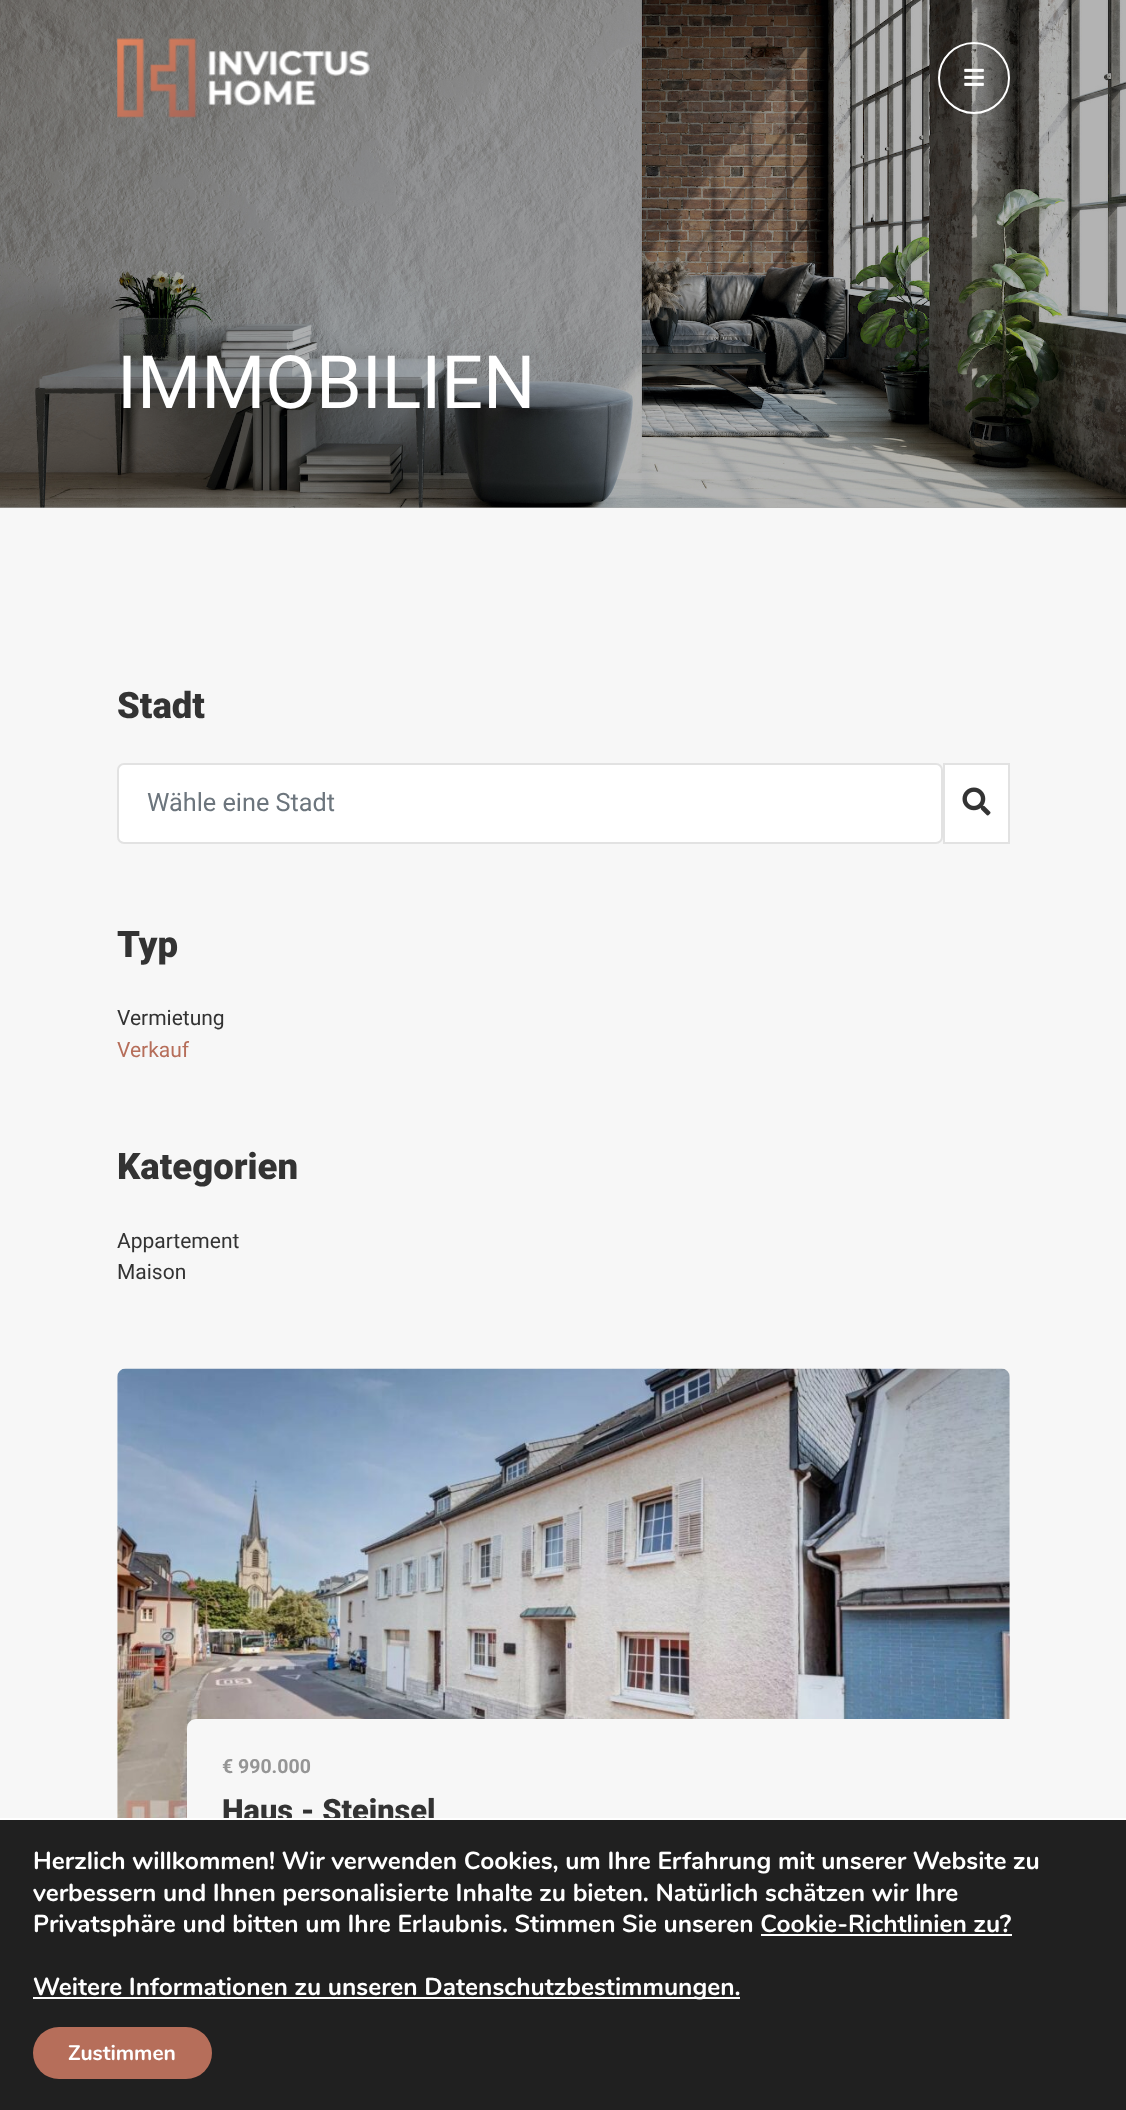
<svg xmlns="http://www.w3.org/2000/svg" width="1126" height="2110" viewBox="0 0 1126 2110">
  <rect width="100%" height="100%" fill="#f7f7f7"/>
  <path d="M0 507h1126v1H0z" fill="#adadad"/>
  <image x="0" y="0" width="1126" height="508" href="img/3.png"/>
  <image x="117" y="38" width="253" height="80" href="img/1.png"/>
  <circle cx="974" cy="78" r="35" fill="none" stroke="#fff" stroke-width="2"/>
  <image x="964" y="68" width="20" height="18" href="img/2.png"/>
  <rect x="118" y="764" width="824" height="79" rx="6" fill="#fff" stroke="#e2e2e2" stroke-width="2"/>
  <path d="M944 764h65v79H944z" fill="#fff" stroke="#e2e2e2" stroke-width="2"/>
  <image x="962" y="787" width="29" height="29" href="img/4.png"/>
  <image x="117" y="1368" width="893" height="450" href="img/5.png"/>
  <path d="M196 1719H1010V1880H187V1728C187 1723 191 1719 196 1719Z" fill="#f7f7f7"/>
  <text x="117" y="408" font-family="Roboto" font-size="73.5" fill="#fff">IMMOBILIEN</text>
  <text x="117" y="718" font-family="Roboto" font-size="36.5" font-weight="900" fill="#333">Stadt</text>
  <text x="147" y="811" font-family="Roboto" font-size="25.25" fill="#6c757d">Wähle eine Stadt</text>
  <text x="117" y="957" font-family="Roboto" font-size="36.5" font-weight="900" fill="#333">Typ</text>
  <text x="117" y="1025" font-family="Roboto" font-size="21" fill="#333">Vermietung</text>
  <text x="117" y="1057" font-family="Roboto" font-size="21" fill="#b66e5a">Verkauf</text>
  <text x="117" y="1179" font-family="Roboto" font-size="36.5" font-weight="900" fill="#333">Kategorien</text>
  <g font-family="Roboto" font-size="21" fill="#333">
    <text x="117" y="1248">Appartement</text>
    <text x="117" y="1279">Maison</text>
  </g>
  <text x="222" y="1773" font-family="Roboto" font-size="19.5" font-weight="bold" fill="#959595">€ 990.000</text>
  <text x="222" y="1821" font-family="Roboto" font-size="30.75" font-weight="900" fill="#333">Haus - Steinsel</text>
  <path d="M0 1820h1126v290H0z" fill="#202020"/>
  <path d="M0 1818h1126v2H0z" fill="#fff"/>
  <g font-family="Nunito" font-size="24.5" font-weight="bold" fill="#fff">
    <text x="33" y="1869">Herzlich willkommen! Wir verwenden Cookies, um Ihre Erfahrung mit unserer Website zu</text>
    <text x="33" y="1901">verbessern und Ihnen personalisierte Inhalte zu bieten. Natürlich schätzen wir Ihre</text>
    <text x="33" y="1932">Privatsphäre und bitten um Ihre Erlaubnis. Stimmen Sie unseren Cookie-Richtlinien zu?</text>
  </g>
  <path d="M761 1934h251v2H761z" fill="#fff"/>
  <path d="M33 1997h707v2H33z" fill="#fff"/>
  <text x="33" y="1995" font-family="Nunito" font-size="24.5" font-weight="bold" fill="#fff">Weitere Informationen zu unseren Datenschutzbestimmungen.</text>
  <rect x="33" y="2027" width="179" height="52" rx="26" fill="#b66e5a"/>
  <text x="68" y="2060" font-family="Nunito" font-size="21" font-weight="bold" fill="#fff">Zustimmen</text>
</svg>
